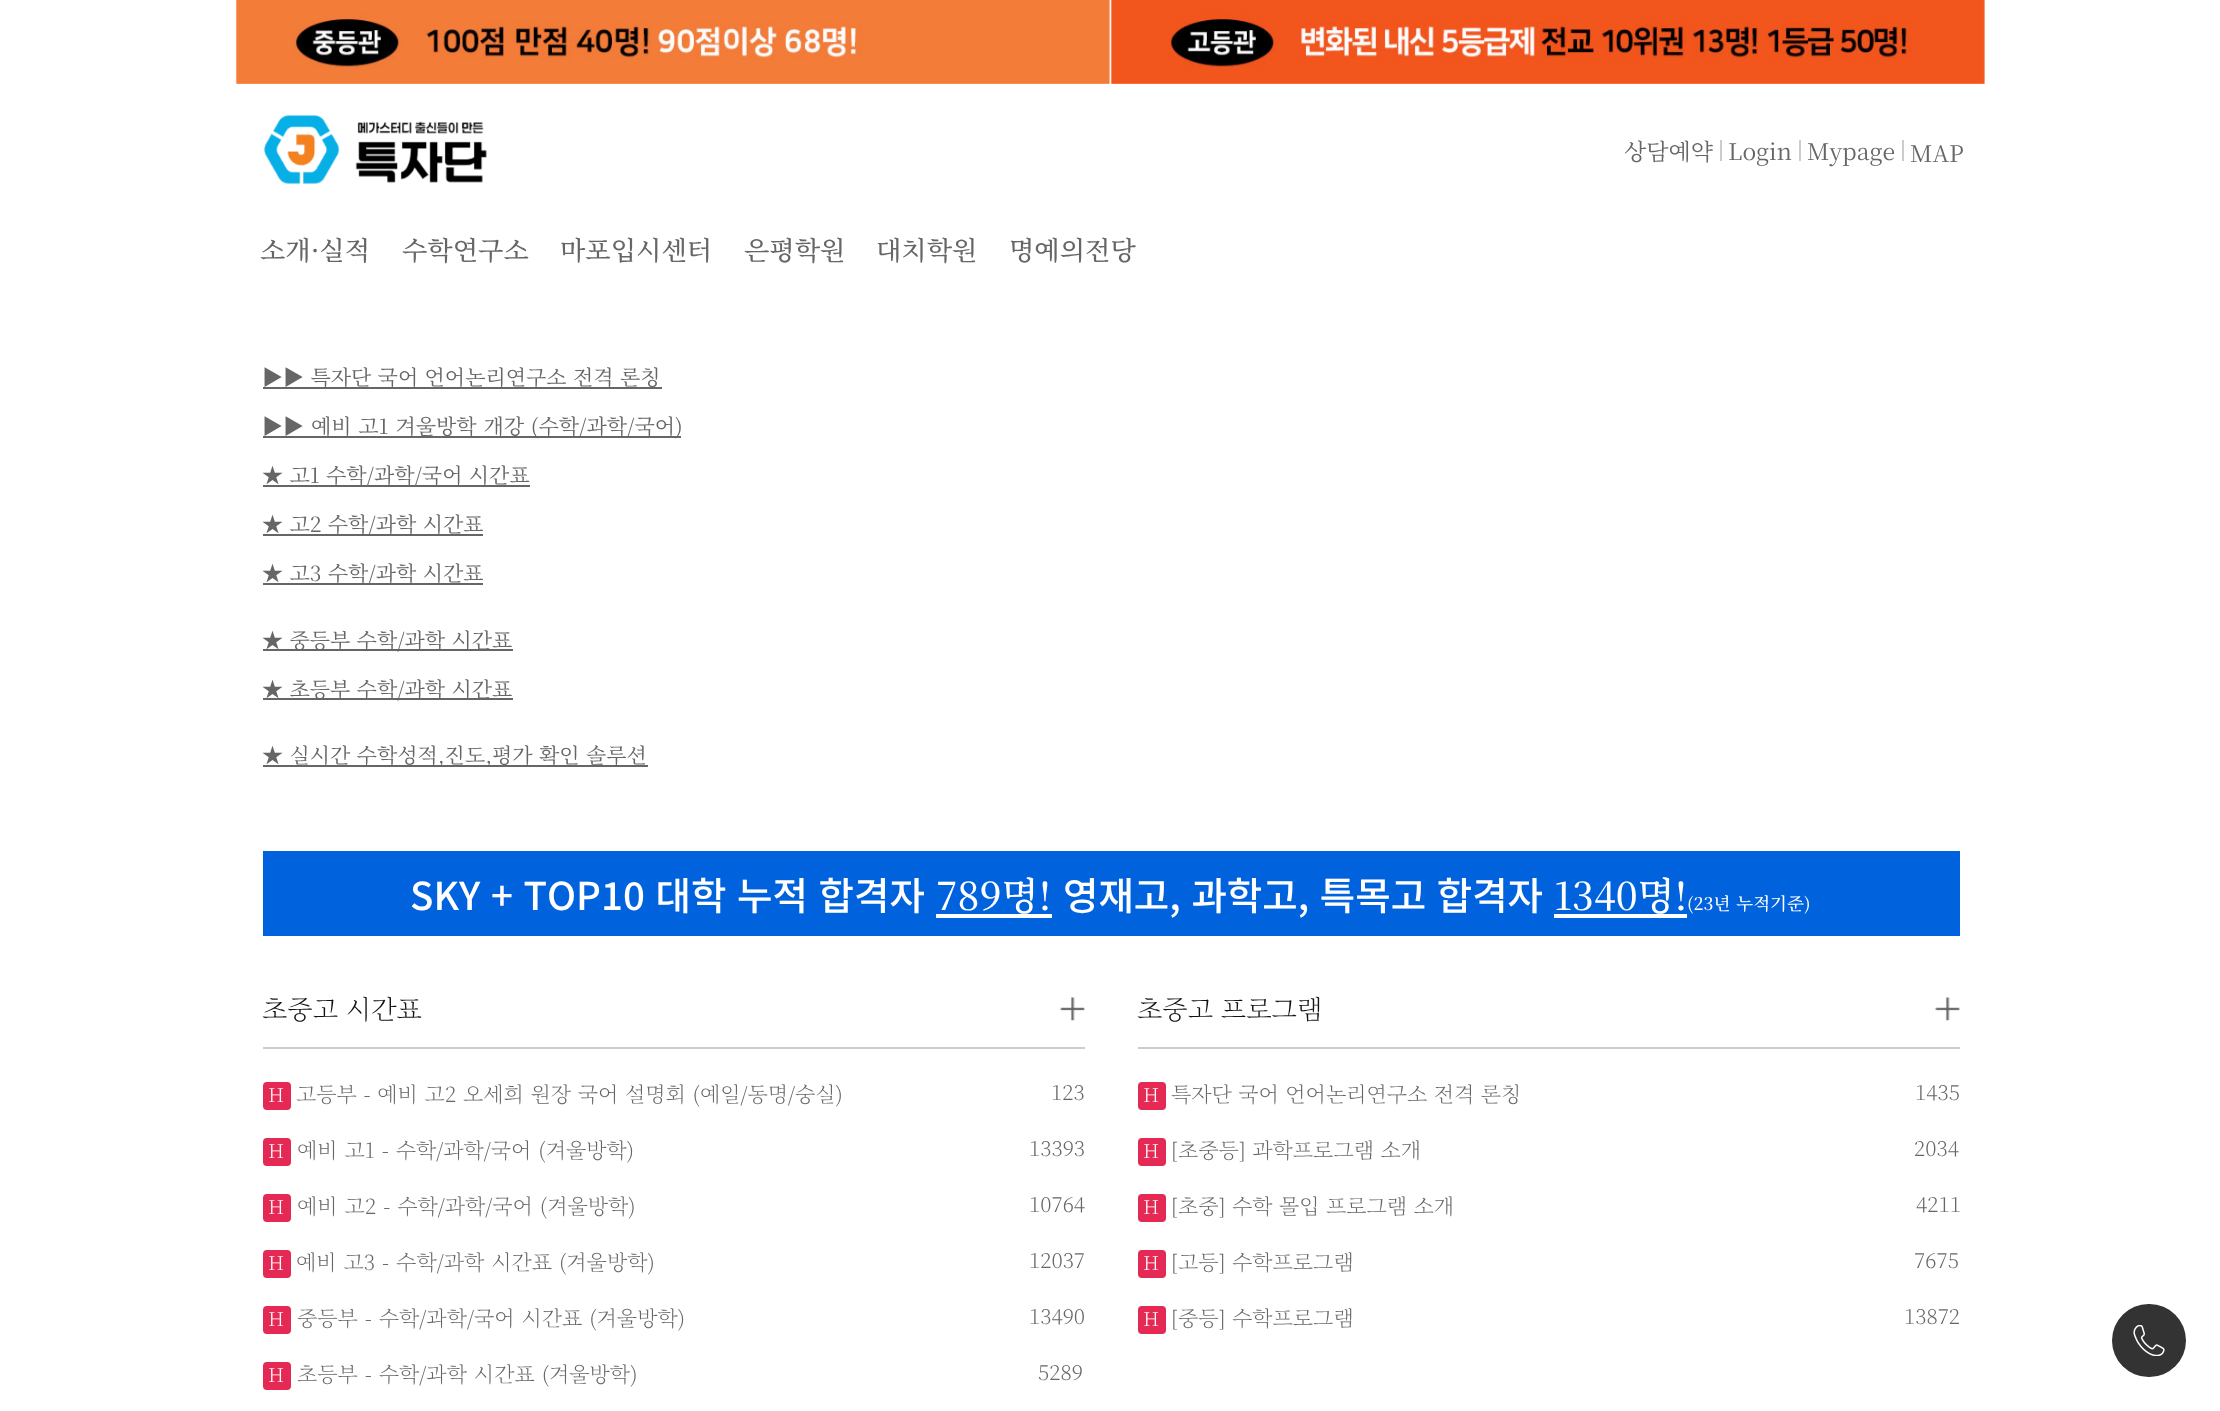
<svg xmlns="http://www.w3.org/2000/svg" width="2220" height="1411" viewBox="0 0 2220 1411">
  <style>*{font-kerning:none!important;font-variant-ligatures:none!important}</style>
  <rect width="100%" height="100%" fill="#fff"/>
  <image x="235" y="0" width="875" height="84" href="img/1.png"/>
  <image x="1110" y="0" width="875" height="84" href="img/2.png"/>
  <image x="264" y="115" width="223" height="69" href="img/3.png"/>
  <path d="M1720 140h2v21H1720z" fill="#ccc"/>
  <path d="M1799 140h2v21H1799z" fill="#ccc"/>
  <path d="M1902 140h2v21H1902z" fill="#ccc"/>
  <path d="M263 387h399v2H263z" fill="#666"/>
  <path d="M263 436h418v2H263z" fill="#666"/>
  <path d="M263 485h267v2H263z" fill="#666"/>
  <path d="M263 534h220v2H263z" fill="#666"/>
  <path d="M263 583h220v2H263z" fill="#666"/>
  <path d="M263 649h250v2H263z" fill="#666"/>
  <path d="M263 698h250v2H263z" fill="#666"/>
  <path d="M263 765h385v2H263z" fill="#666"/>
  <path d="M263 851h1697v85H263z" fill="#0062dd"/>
  <path d="M936 914h116v4H936z" fill="#fff"/>
  <path d="M1554 914h133v4H1554z" fill="#fff"/>
  <image x="1060" y="997" width="25" height="24" href="img/4.png"/>
  <path d="M263 1047h822v2H263z" fill="#ccc"/>
  <rect x="263" y="1082" width="28" height="28" rx="4" fill="#e52955"/>
  <rect x="263" y="1138" width="28" height="28" rx="4" fill="#e52955"/>
  <rect x="263" y="1194" width="28" height="28" rx="4" fill="#e52955"/>
  <rect x="263" y="1250" width="28" height="28" rx="4" fill="#e52955"/>
  <rect x="263" y="1306" width="28" height="28" rx="4" fill="#e52955"/>
  <rect x="263" y="1362" width="28" height="28" rx="4" fill="#e52955"/>
  <image x="1935" y="997" width="25" height="24" href="img/5.png"/>
  <path d="M1138 1047h822v2H1138z" fill="#ccc"/>
  <rect x="1138" y="1082" width="28" height="28" rx="4" fill="#e52955"/>
  <rect x="1138" y="1138" width="28" height="28" rx="4" fill="#e52955"/>
  <rect x="1138" y="1194" width="28" height="28" rx="4" fill="#e52955"/>
  <rect x="1138" y="1250" width="28" height="28" rx="4" fill="#e52955"/>
  <rect x="1138" y="1306" width="28" height="28" rx="4" fill="#e52955"/>
  <rect x="2112" y="1304" width="74" height="73" rx="36.5" fill="#333"/>
  <image x="2133" y="1325" width="32" height="31" href="img/6.png"/>
  <g font-family="Noto Serif KR" font-size="23" fill="#666">
    <text x="1624" y="160">상담예약</text>
    <text x="1728" y="160">Login</text>
    <text x="1807" y="160">Mypage</text>
    <text x="1910" y="162">MAP</text>
  </g>
  <g font-family="Noto Serif KR" font-size="26.25" font-weight="500" fill="#666">
    <text x="260" y="260">소개·실적</text>
    <text x="402" y="260">수학연구소</text>
    <text x="560" y="260">마포입시센터</text>
    <text x="744" y="260">은평학원</text>
    <text x="876" y="260">대치학원</text>
    <text x="1009" y="260">명예의전당</text>
  </g>
  <g font-family="Noto Serif KR" font-size="21" fill="#666">
    <text x="262" y="385" word-spacing="1">▶▶ 특자단 국어 언어논리연구소 전격 론칭</text>
    <text x="262" y="434" word-spacing="1.5">▶▶ 예비 고1 겨울방학 개강 (수학/과학/국어)</text>
    <text x="262" y="483" word-spacing="1">★ 고1 수학/과학/국어 시간표</text>
    <text x="262" y="532" word-spacing="1">★ 고2 수학/과학 시간표</text>
    <text x="262" y="581" word-spacing="1">★ 고3 수학/과학 시간표</text>
    <text x="262" y="648" word-spacing="1">★ 중등부 수학/과학 시간표</text>
    <text x="262" y="697" word-spacing="1">★ 초등부 수학/과학 시간표</text>
    <text x="262" y="763" word-spacing="1">★ 실시간 수학성적,진도,평가 확인 솔루션</text>
  </g>
  <text x="410" y="910" word-spacing="2" font-family="Noto Sans KR" font-size="38.5" font-weight="500" fill="#fff">SKY + TOP10 대학 누적 합격자</text>
  <text x="936" y="910" font-family="Noto Serif KR" font-size="38.5" font-weight="500" fill="#fff">789명!</text>
  <text x="1063" y="910" word-spacing="2" font-family="Noto Sans KR" font-size="38.5" font-weight="500" fill="#fff">영재고, 과학고, 특목고 합격자</text>
  <text x="1554" y="910" font-family="Noto Serif KR" font-size="38.5" font-weight="500" fill="#fff">1340명!</text>
  <text x="1687" y="910" word-spacing="1.5" font-family="Noto Serif KR" font-size="17.5" font-weight="500" fill="#fff">(23년 누적기준)</text>
  <text x="262" y="1019" word-spacing="1" font-family="Noto Serif KR" font-size="26.25" font-weight="200" fill="#111">초중고 시간표</text>
  <text x="268" y="1102" font-family="Noto Serif KR" font-size="19" font-weight="200" fill="#fff">H</text>
  <g font-family="Noto Serif KR" font-size="21" font-weight="200" fill="#666">
    <text x="296" y="1102" word-spacing="1.25">고등부 - 예비 고2 오세희 원장 국어 설명회 (예일/동명/숭실)</text>
    <text x="1051" y="1100">123</text>
  </g>
  <text x="268" y="1158" font-family="Noto Serif KR" font-size="19" font-weight="200" fill="#fff">H</text>
  <g font-family="Noto Serif KR" font-size="21" font-weight="200" fill="#666">
    <text x="297" y="1158" word-spacing="1.5">예비 고1 - 수학/과학/국어 (겨울방학)</text>
    <text x="1029" y="1156">13393</text>
  </g>
  <text x="268" y="1214" font-family="Noto Serif KR" font-size="19" font-weight="200" fill="#fff">H</text>
  <g font-family="Noto Serif KR" font-size="21" font-weight="200" fill="#666">
    <text x="297" y="1214" word-spacing="1.5">예비 고2 - 수학/과학/국어 (겨울방학)</text>
    <text x="1029" y="1212">10764</text>
  </g>
  <text x="268" y="1270" font-family="Noto Serif KR" font-size="19" font-weight="200" fill="#fff">H</text>
  <g font-family="Noto Serif KR" font-size="21" font-weight="200" fill="#666">
    <text x="296" y="1270" word-spacing="1.5">예비 고3 - 수학/과학 시간표 (겨울방학)</text>
    <text x="1029" y="1268">12037</text>
  </g>
  <text x="268" y="1326" font-family="Noto Serif KR" font-size="19" font-weight="200" fill="#fff">H</text>
  <g font-family="Noto Serif KR" font-size="21" font-weight="200" fill="#666">
    <text x="297" y="1326" word-spacing="1.5">중등부 - 수학/과학/국어 시간표 (겨울방학)</text>
    <text x="1029" y="1324">13490</text>
  </g>
  <text x="268" y="1382" font-family="Noto Serif KR" font-size="19" font-weight="200" fill="#fff">H</text>
  <g font-family="Noto Serif KR" font-size="21" font-weight="200" fill="#666">
    <text x="297" y="1382" word-spacing="1.5">초등부 - 수학/과학 시간표 (겨울방학)</text>
    <text x="1038" y="1380">5289</text>
  </g>
  <text x="1137" y="1019" word-spacing="1" font-family="Noto Serif KR" font-size="26.25" font-weight="200" fill="#111">초중고 프로그램</text>
  <text x="1143" y="1102" font-family="Noto Serif KR" font-size="19" font-weight="200" fill="#fff">H</text>
  <g font-family="Noto Serif KR" font-size="21" font-weight="200" fill="#666">
    <text x="1171" y="1102" word-spacing="1">특자단 국어 언어논리연구소 전격 론칭</text>
    <text x="1915" y="1100">1435</text>
  </g>
  <text x="1143" y="1158" font-family="Noto Serif KR" font-size="19" font-weight="200" fill="#fff">H</text>
  <g font-family="Noto Serif KR" font-size="21" font-weight="200" fill="#666">
    <text x="1171" y="1158" word-spacing="1">[초중등] 과학프로그램 소개</text>
    <text x="1914" y="1156">2034</text>
  </g>
  <text x="1143" y="1214" font-family="Noto Serif KR" font-size="19" font-weight="200" fill="#fff">H</text>
  <g font-family="Noto Serif KR" font-size="21" font-weight="200" fill="#666">
    <text x="1171" y="1214" word-spacing="1">[초중] 수학 몰입 프로그램 소개</text>
    <text x="1916" y="1212">4211</text>
  </g>
  <text x="1143" y="1270" font-family="Noto Serif KR" font-size="19" font-weight="200" fill="#fff">H</text>
  <g font-family="Noto Serif KR" font-size="21" font-weight="200" fill="#666">
    <text x="1171" y="1270" word-spacing="1">[고등] 수학프로그램</text>
    <text x="1914" y="1268">7675</text>
  </g>
  <text x="1143" y="1326" font-family="Noto Serif KR" font-size="19" font-weight="200" fill="#fff">H</text>
  <g font-family="Noto Serif KR" font-size="21" font-weight="200" fill="#666">
    <text x="1171" y="1326" word-spacing="1">[중등] 수학프로그램</text>
    <text x="1904" y="1324">13872</text>
  </g>
</svg>
